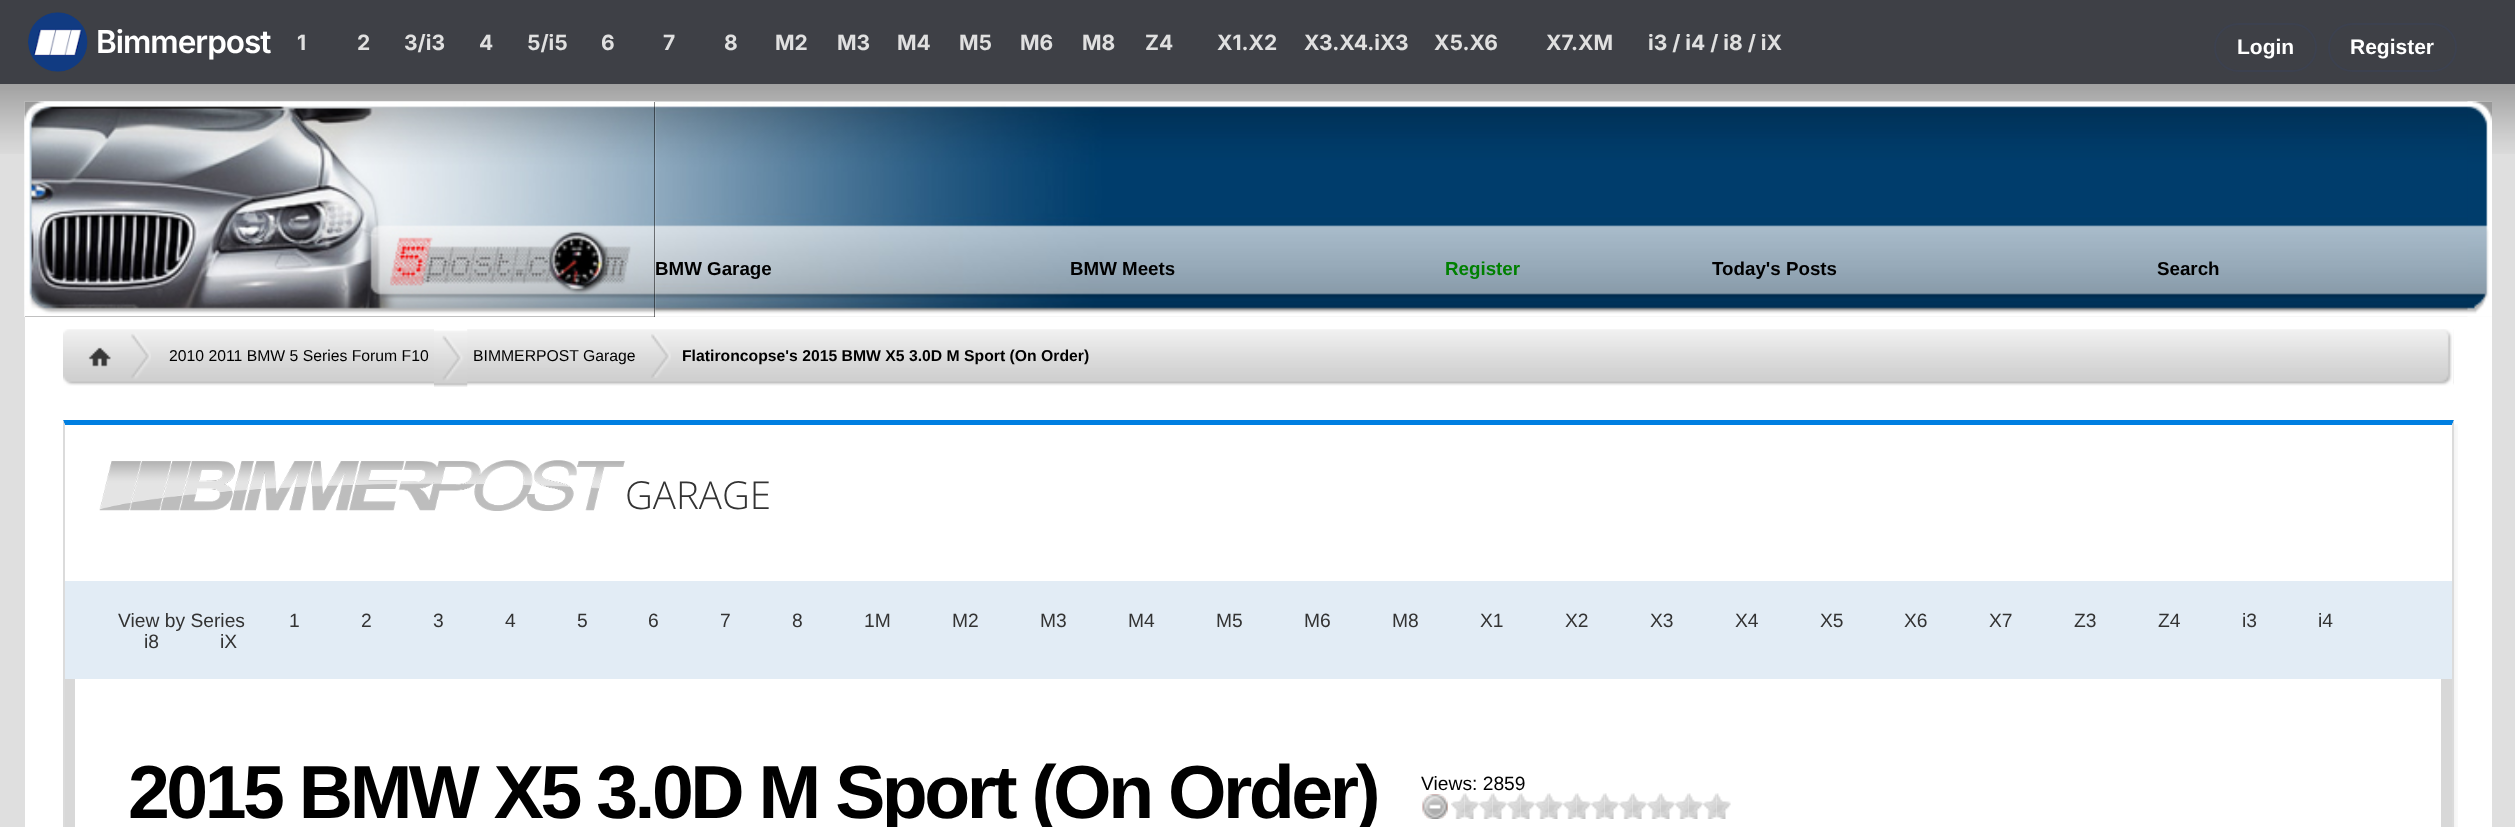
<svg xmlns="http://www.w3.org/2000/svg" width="2515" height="827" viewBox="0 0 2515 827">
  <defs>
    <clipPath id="clip1"><path d="M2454 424h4v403H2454z"/></clipPath>
  </defs>
  <rect width="100%" height="100%" fill="#dfdfdf"/>
  <image x="0" y="84" width="2515" height="70" href="img/1.png"/>
  <path d="M0 0h2515v84H0z" fill="#3e4046"/>
  <image x="28" y="12" width="60" height="60" href="img/2.png"/>
  <rect x="2215" y="24" width="101" height="47" rx="23.5" fill="none" stroke="#3c414f" stroke-width="2"/>
  <rect x="2329" y="24" width="127" height="47" rx="23.5" fill="none" stroke="#3c414f" stroke-width="2"/>
  <image x="24" y="101" width="2468" height="216" href="img/3.png"/>
  <path d="M25 102h630v215H25z" fill="#000"/>
  <image x="24" y="101" width="631" height="216" href="img/4.png"/>
  <image x="2467" y="101" width="25" height="216" href="img/5.png"/>
  <path d="M25 317h2467v510H25z" fill="#fff"/>
  <image x="151" y="329" width="17" height="57" href="img/6.png"/>
  <image x="63" y="329" width="88" height="57" href="img/7.png"/>
  <image x="168" y="329" width="2268" height="57" href="img/8.png"/>
  <image x="434" y="329" width="34" height="58" href="img/9.png"/>
  <image x="651" y="334" width="20" height="44" href="img/10.png"/>
  <image x="2453" y="329" width="1" height="56" href="img/11.png"/>
  <image x="2436" y="329" width="18" height="57" href="img/12.png"/>
  <g clip-path="url(#clip1)">
    <path d="M67 424h2390v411H67z" fill="#0000000d" filter="blur(2.5px)"/>
  </g>
  <path d="M63 420H2454L2452 425H65Z" fill="#007fe1"/>
  <path d="M2454 420V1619L2452 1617V425Z" fill="#dbdbdb"/>
  <path d="M63 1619V420L65 425V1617Z" fill="#dbdbdb"/>
  <image x="99" y="460" width="526" height="51" href="img/13.png"/>
  <path d="M65 581h2387v98H65z" fill="#e2ecf5"/>
  <path d="M2441 679h11v148H2441z" fill="#d8d8d8"/>
  <path d="M65 679h10v148H65z" fill="#d8d8d8"/>
  <image x="1422" y="794" width="26" height="25" href="img/14.png"/>
  <image x="1422" y="794" width="26" height="25" href="img/15.png"/>
  <image x="1451" y="793" width="14" height="26" href="img/16.png"/>
  <image x="1465" y="793" width="14" height="26" href="img/17.png"/>
  <image x="1479" y="793" width="14" height="26" href="img/18.png"/>
  <image x="1493" y="793" width="14" height="26" href="img/17.png"/>
  <image x="1507" y="793" width="14" height="26" href="img/18.png"/>
  <image x="1521" y="793" width="14" height="26" href="img/17.png"/>
  <image x="1535" y="793" width="14" height="26" href="img/19.png"/>
  <image x="1549" y="793" width="14" height="26" href="img/17.png"/>
  <image x="1563" y="793" width="14" height="26" href="img/18.png"/>
  <image x="1577" y="793" width="14" height="26" href="img/17.png"/>
  <image x="1591" y="793" width="14" height="26" href="img/16.png"/>
  <image x="1605" y="793" width="14" height="26" href="img/20.png"/>
  <image x="1619" y="793" width="14" height="26" href="img/16.png"/>
  <image x="1633" y="793" width="14" height="26" href="img/20.png"/>
  <image x="1647" y="793" width="14" height="26" href="img/18.png"/>
  <image x="1661" y="793" width="14" height="26" href="img/17.png"/>
  <image x="1675" y="793" width="14" height="26" href="img/18.png"/>
  <image x="1689" y="793" width="14" height="26" href="img/17.png"/>
  <image x="1703" y="793" width="14" height="26" href="img/18.png"/>
  <image x="1717" y="793" width="14" height="26" href="img/17.png"/>
  <text x="96" y="53" font-family="Inter" font-size="31.5" font-weight="600" letter-spacing="-1" fill="#fff">Bimmerpost</text>
  <g font-family="Inter" font-size="21" font-weight="bold" fill="#e0e0e0">
    <text x="297" y="50">1</text>
    <text x="357" y="50">2</text>
    <text x="404" y="50">3/i3</text>
    <text x="479" y="50">4</text>
    <text x="527" y="50">5/i5</text>
    <text x="601" y="50">6</text>
    <text x="663" y="50">7</text>
    <text x="724" y="50">8</text>
    <text x="775" y="50">M2</text>
    <text x="837" y="50">M3</text>
    <text x="897" y="50">M4</text>
    <text x="959" y="50">M5</text>
    <text x="1020" y="50">M6</text>
    <text x="1082" y="50">M8</text>
    <text x="1145" y="50">Z4</text>
    <text x="1217" y="50">X1.X2</text>
    <text x="1304" y="50">X3.X4.iX3</text>
    <text x="1434" y="50">X5.X6</text>
    <text x="1546" y="50">X7.XM</text>
    <text x="1648" y="50">i3 / i4 / i8 / iX</text>
  </g>
  <g font-family="Liberation Sans" font-size="21" font-weight="bold" fill="#fff">
    <text x="2237" y="54">Login</text>
    <text x="2350" y="54">Register</text>
  </g>
  <g font-family="Liberation Sans" font-size="18.75" font-weight="bold" fill="#000">
    <text x="655" y="275">BMW Garage</text>
    <text x="1070" y="275">BMW Meets</text>
  </g>
  <text x="1445" y="275" font-family="Liberation Sans" font-size="18.75" font-weight="bold" fill="#008000">Register</text>
  <g font-family="Liberation Sans" font-size="18.75" font-weight="bold" fill="#000">
    <text x="1712" y="275">Today's Posts</text>
    <text x="2157" y="275">Search</text>
  </g>
  <g font-family="Liberation Sans" font-size="15.75" fill="#000">
    <text x="169" y="361">2010 2011 BMW 5 Series Forum F10</text>
    <text x="473" y="361">BIMMERPOST Garage</text>
  </g>
  <text x="682" y="361" font-family="Liberation Sans" font-size="15.75" font-weight="bold" fill="#000">Flatironcopse's 2015 BMW X5 3.0D M Sport (On Order)</text>
  <text x="625" y="509" font-family="Open Sans" font-size="38.5" font-weight="300" fill="#333">GARAGE</text>
  <g font-family="Liberation Sans" font-size="19.25" fill="#333">
    <text x="118" y="627">View by Series</text>
    <text x="289" y="627">1</text>
    <text x="361" y="627">2</text>
    <text x="433" y="627">3</text>
    <text x="505" y="627">4</text>
    <text x="577" y="627">5</text>
    <text x="648" y="627">6</text>
    <text x="720" y="627">7</text>
    <text x="792" y="627">8</text>
    <text x="864" y="627">1M</text>
    <text x="952" y="627">M2</text>
    <text x="1040" y="627">M3</text>
    <text x="1128" y="627">M4</text>
    <text x="1216" y="627">M5</text>
    <text x="1304" y="627">M6</text>
    <text x="1392" y="627">M8</text>
    <text x="1480" y="627">X1</text>
    <text x="1565" y="627">X2</text>
    <text x="1650" y="627">X3</text>
    <text x="1735" y="627">X4</text>
    <text x="1820" y="627">X5</text>
    <text x="1904" y="627">X6</text>
    <text x="1989" y="627">X7</text>
    <text x="2074" y="627">Z3</text>
    <text x="2158" y="627">Z4</text>
    <text x="2242" y="627">i3</text>
    <text x="2318" y="627">i4</text>
    <text x="144" y="648">i8</text>
    <text x="220" y="648">iX</text>
  </g>
  <text x="128" y="818" font-family="Liberation Sans" font-size="75.25" font-weight="bold" letter-spacing="-3.5" fill="#000">2015 BMW X5 3.0D M Sport (On Order)</text>
  <text x="1421" y="790" font-family="Liberation Sans" font-size="19.25" fill="#000">Views: 2859</text>
</svg>
